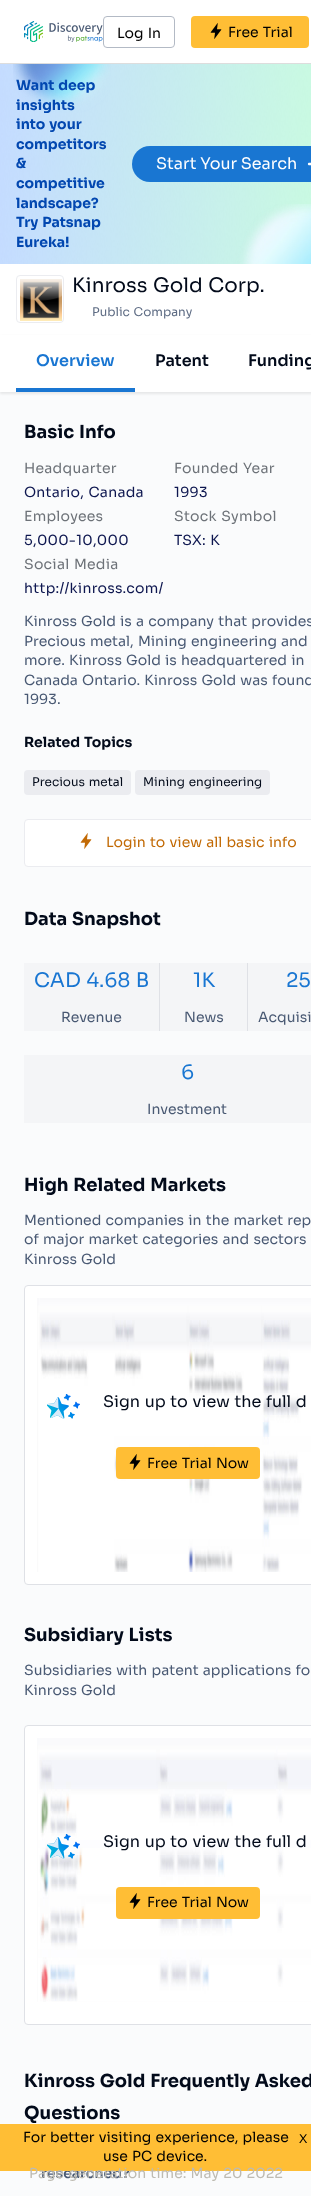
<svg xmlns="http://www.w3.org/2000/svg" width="311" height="2196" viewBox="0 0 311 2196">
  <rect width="100%" height="100%" fill="#fff"/>
  <path d="M0 63h311v1H0z" fill="#ddd"/>
  <image x="24" y="21" width="79" height="21" href="img/1.png"/>
  <rect x="103.5" y="16.5" width="71" height="31" rx="3.5" fill="none" stroke="#b3bac5"/>
  <rect x="191" y="16" width="118" height="32" rx="4" fill="#ffbe35"/>
  <image x="210" y="23" width="12" height="16" href="img/2.png"/>
  <image x="0" y="64" width="311" height="200" href="img/3.png"/>
  <rect x="132" y="146" width="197" height="36" rx="18" fill="#1976d2"/>
  <image x="307" y="162" width="4" height="4" href="img/4.png"/>
  <rect x="16.5" y="275.5" width="47" height="47" rx="3.5" fill="none" stroke="#ebecf0"/>
  <image x="20" y="279" width="42" height="42" href="img/5.png"/>
  <path d="M0 392h311v1804H0z" fill="#fafbfc"/>
  <path d="M0 336h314v58H0z" fill="#00000014" filter="blur(1px)"/>
  <path d="M0 335h311v57H0z" fill="#fff"/>
  <path d="M16 388h119v4H16z" fill="#1976d2"/>
  <rect x="24" y="770" width="107" height="25" rx="4" fill="#ebecf0"/>
  <rect x="135" y="770" width="135" height="25" rx="4" fill="#ebecf0"/>
  <rect x="24.5" y="819.5" width="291" height="47" rx="3.5" fill="#fff" stroke="#ebecf0"/>
  <image x="80" y="833" width="12" height="16" href="img/6.png"/>
  <path d="M24 963h135v68H24z" fill="#f4f5f7"/>
  <path d="M159 963h1v68H159z" fill="#dfe1e6"/>
  <path d="M160 963h87v68H160z" fill="#f4f5f7"/>
  <path d="M247 963h1v68H247z" fill="#dfe1e6"/>
  <path d="M248 963h63v68H248z" fill="#f4f5f7"/>
  <path d="M24 1055h287v68H24z" fill="#f4f5f7"/>
  <rect x="24.5" y="1285.5" width="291" height="299" rx="3.5" fill="#fff" stroke="#dfe1e6"/>
  <image x="37" y="1298" width="274" height="274" href="img/7.png"/>
  <image x="47" y="1394" width="33" height="25" href="img/8.png"/>
  <rect x="116" y="1447" width="144" height="32" rx="4" fill="#ffbe35"/>
  <image x="129" y="1454" width="12" height="16" href="img/2.png"/>
  <rect x="24.5" y="1725.5" width="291" height="299" rx="3.5" fill="#fff" stroke="#dfe1e6"/>
  <image x="37" y="1738" width="274" height="264" href="img/9.png"/>
  <image x="47" y="1834" width="33" height="25" href="img/10.png"/>
  <rect x="116" y="1887" width="144" height="32" rx="4" fill="#ffbe35"/>
  <image x="129" y="1893" width="12" height="16" href="img/2.png"/>
  <g font-family="Sora" font-size="14" fill="#000">
    <text x="117" y="38" word-spacing="1">Log In</text>
    <text x="228" y="37" word-spacing="1">Free Trial</text>
  </g>
  <g font-family="Sora" font-size="14" font-weight="bold" fill="#0247b0">
    <text x="16" y="90" word-spacing="1">Want deep</text>
    <text x="16" y="110">insights</text>
    <text x="16" y="129" word-spacing="1">into your</text>
    <text x="16" y="149">competitors</text>
    <text x="16" y="168">&amp;</text>
    <text x="16" y="188">competitive</text>
    <text x="16" y="208">landscape?</text>
    <text x="16" y="227" word-spacing="1">Try Patsnap</text>
    <text x="16" y="247">Eureka!</text>
  </g>
  <text x="156" y="169" font-family="Sora" font-size="16" fill="#fff">Start Your Search</text>
  <text x="72" y="292" word-spacing="1" font-family="Sora" font-size="20" fill="#020a1a">Kinross Gold Corp.</text>
  <text x="92" y="316" word-spacing="1" font-family="Sora" font-size="12" fill="#5e6c84">Public Company</text>
  <text x="36" y="366" font-family="Sora" font-size="16" font-weight="600" fill="#1976d2">Overview</text>
  <g font-family="Sora" font-size="16" font-weight="600" fill="#020a1a">
    <text x="155" y="366">Patent</text>
    <text x="248" y="366">Funding</text>
  </g>
  <text x="24" y="438" word-spacing="1" font-family="Sora" font-size="18" font-weight="bold" fill="#020a1a">Basic Info</text>
  <text x="24" y="473" font-family="Sora" font-size="14" letter-spacing="0.25" fill="#6d7278">Headquarter</text>
  <text x="24" y="497" word-spacing="1" font-family="Sora" font-size="14" letter-spacing="0.25" fill="#0d164f">Ontario, Canada</text>
  <text x="174" y="473" word-spacing="1" font-family="Sora" font-size="14" letter-spacing="0.25" fill="#6d7278">Founded Year</text>
  <text x="174" y="497" font-family="Sora" font-size="14" letter-spacing="0.25" fill="#0d164f">1993</text>
  <text x="24" y="521" font-family="Sora" font-size="14" letter-spacing="0.25" fill="#6d7278">Employees</text>
  <text x="24" y="545" font-family="Sora" font-size="14" letter-spacing="0.25" fill="#0d164f">5,000-10,000</text>
  <text x="174" y="521" word-spacing="1" font-family="Sora" font-size="14" letter-spacing="0.25" fill="#6d7278">Stock Symbol</text>
  <text x="174" y="545" word-spacing="1" font-family="Sora" font-size="14" letter-spacing="0.25" fill="#0d164f">TSX: K</text>
  <text x="24" y="569" word-spacing="1" font-family="Sora" font-size="14" letter-spacing="0.25" fill="#6d7278">Social Media</text>
  <text x="24" y="593" font-family="Sora" font-size="14" letter-spacing="0.25" fill="#0d164f">http://kinross.com/</text>
  <g font-family="Sora" font-size="14" fill="#495973">
    <text x="24" y="626" word-spacing="1">Kinross Gold is a company that provides</text>
    <text x="24" y="646" word-spacing="1">Precious metal, Mining engineering and</text>
    <text x="24" y="665" word-spacing="1">more. Kinross Gold is headquartered in</text>
    <text x="24" y="685" word-spacing="1">Canada Ontario. Kinross Gold was found</text>
    <text x="24" y="704">1993.</text>
  </g>
  <text x="24" y="747" word-spacing="1" font-family="Sora" font-size="14" font-weight="bold" fill="#020a1a">Related Topics</text>
  <g font-family="Sora" font-size="12" fill="#020a1a">
    <text x="32" y="786" word-spacing="1">Precious metal</text>
    <text x="143" y="786" word-spacing="1">Mining engineering</text>
  </g>
  <text x="106" y="847" word-spacing="1" font-family="Sora" font-size="14" fill="#c26a05">Login to view all basic info</text>
  <text x="24" y="925" word-spacing="1" font-family="Sora" font-size="18" font-weight="bold" fill="#020a1a">Data Snapshot</text>
  <text x="34" y="987" word-spacing="1" font-family="Sora" font-size="20" fill="#1976d2">CAD 4.68 B</text>
  <text x="61" y="1022" font-family="Sora" font-size="14" fill="#495973">Revenue</text>
  <text x="193" y="987" font-family="Sora" font-size="20" fill="#1976d2">1K</text>
  <text x="184" y="1022" font-family="Sora" font-size="14" fill="#495973">News</text>
  <text x="286" y="987" font-family="Sora" font-size="20" fill="#1976d2">25</text>
  <text x="258" y="1022" font-family="Sora" font-size="14" fill="#495973">Acquisi</text>
  <text x="181" y="1079" font-family="Sora" font-size="20" fill="#1976d2">6</text>
  <text x="147" y="1114" font-family="Sora" font-size="14" fill="#495973">Investment</text>
  <text x="24" y="1191" word-spacing="1" font-family="Sora" font-size="18" font-weight="bold" fill="#020a1a">High Related Markets</text>
  <g font-family="Sora" font-size="14" fill="#495973">
    <text x="24" y="1225" word-spacing="1">Mentioned companies in the market rep</text>
    <text x="24" y="1244" word-spacing="1">of major market categories and sectors</text>
    <text x="24" y="1264" word-spacing="1">Kinross Gold</text>
  </g>
  <text x="103" y="1407" word-spacing="1" font-family="Sora" font-size="16" fill="#020a1a">Sign up to view the full d</text>
  <text x="147" y="1468" word-spacing="1" font-family="Sora" font-size="14" fill="#000">Free Trial Now</text>
  <text x="24" y="1641" word-spacing="1" font-family="Sora" font-size="18" font-weight="bold" fill="#020a1a">Subsidiary Lists</text>
  <g font-family="Sora" font-size="14" fill="#495973">
    <text x="24" y="1675" word-spacing="1">Subsidiaries with patent applications fo</text>
    <text x="24" y="1695" word-spacing="1">Kinross Gold</text>
  </g>
  <text x="103" y="1847" word-spacing="1" font-family="Sora" font-size="16" fill="#020a1a">Sign up to view the full d</text>
  <text x="147" y="1907" word-spacing="1" font-family="Sora" font-size="14" fill="#000">Free Trial Now</text>
  <g font-family="Sora" font-size="18" font-weight="bold" fill="#020a1a">
    <text x="24" y="2087" word-spacing="1">Kinross Gold Frequently Asked</text>
    <text x="24" y="2119">Questions</text>
  </g>
  <text x="41" y="2178" font-family="Sora" font-size="14" font-weight="600" fill="#495973">researched?</text>
  <path d="M0 2124h311v47H0z" fill="#ffbe35"/>
  <text x="29" y="2178" word-spacing="1" font-family="Sora" font-size="14" fill="#bebbb2">Page generation time: May 20 2022</text>
  <text x="23" y="2142" word-spacing="1" font-family="Sora" font-size="14" fill="#000">For better visiting experience, please</text>
  <text x="299" y="2143" font-family="Sora" font-size="12" fill="#000">X</text>
  <text x="103" y="2161" word-spacing="1" font-family="Sora" font-size="14" fill="#000">use PC device.</text>
</svg>
